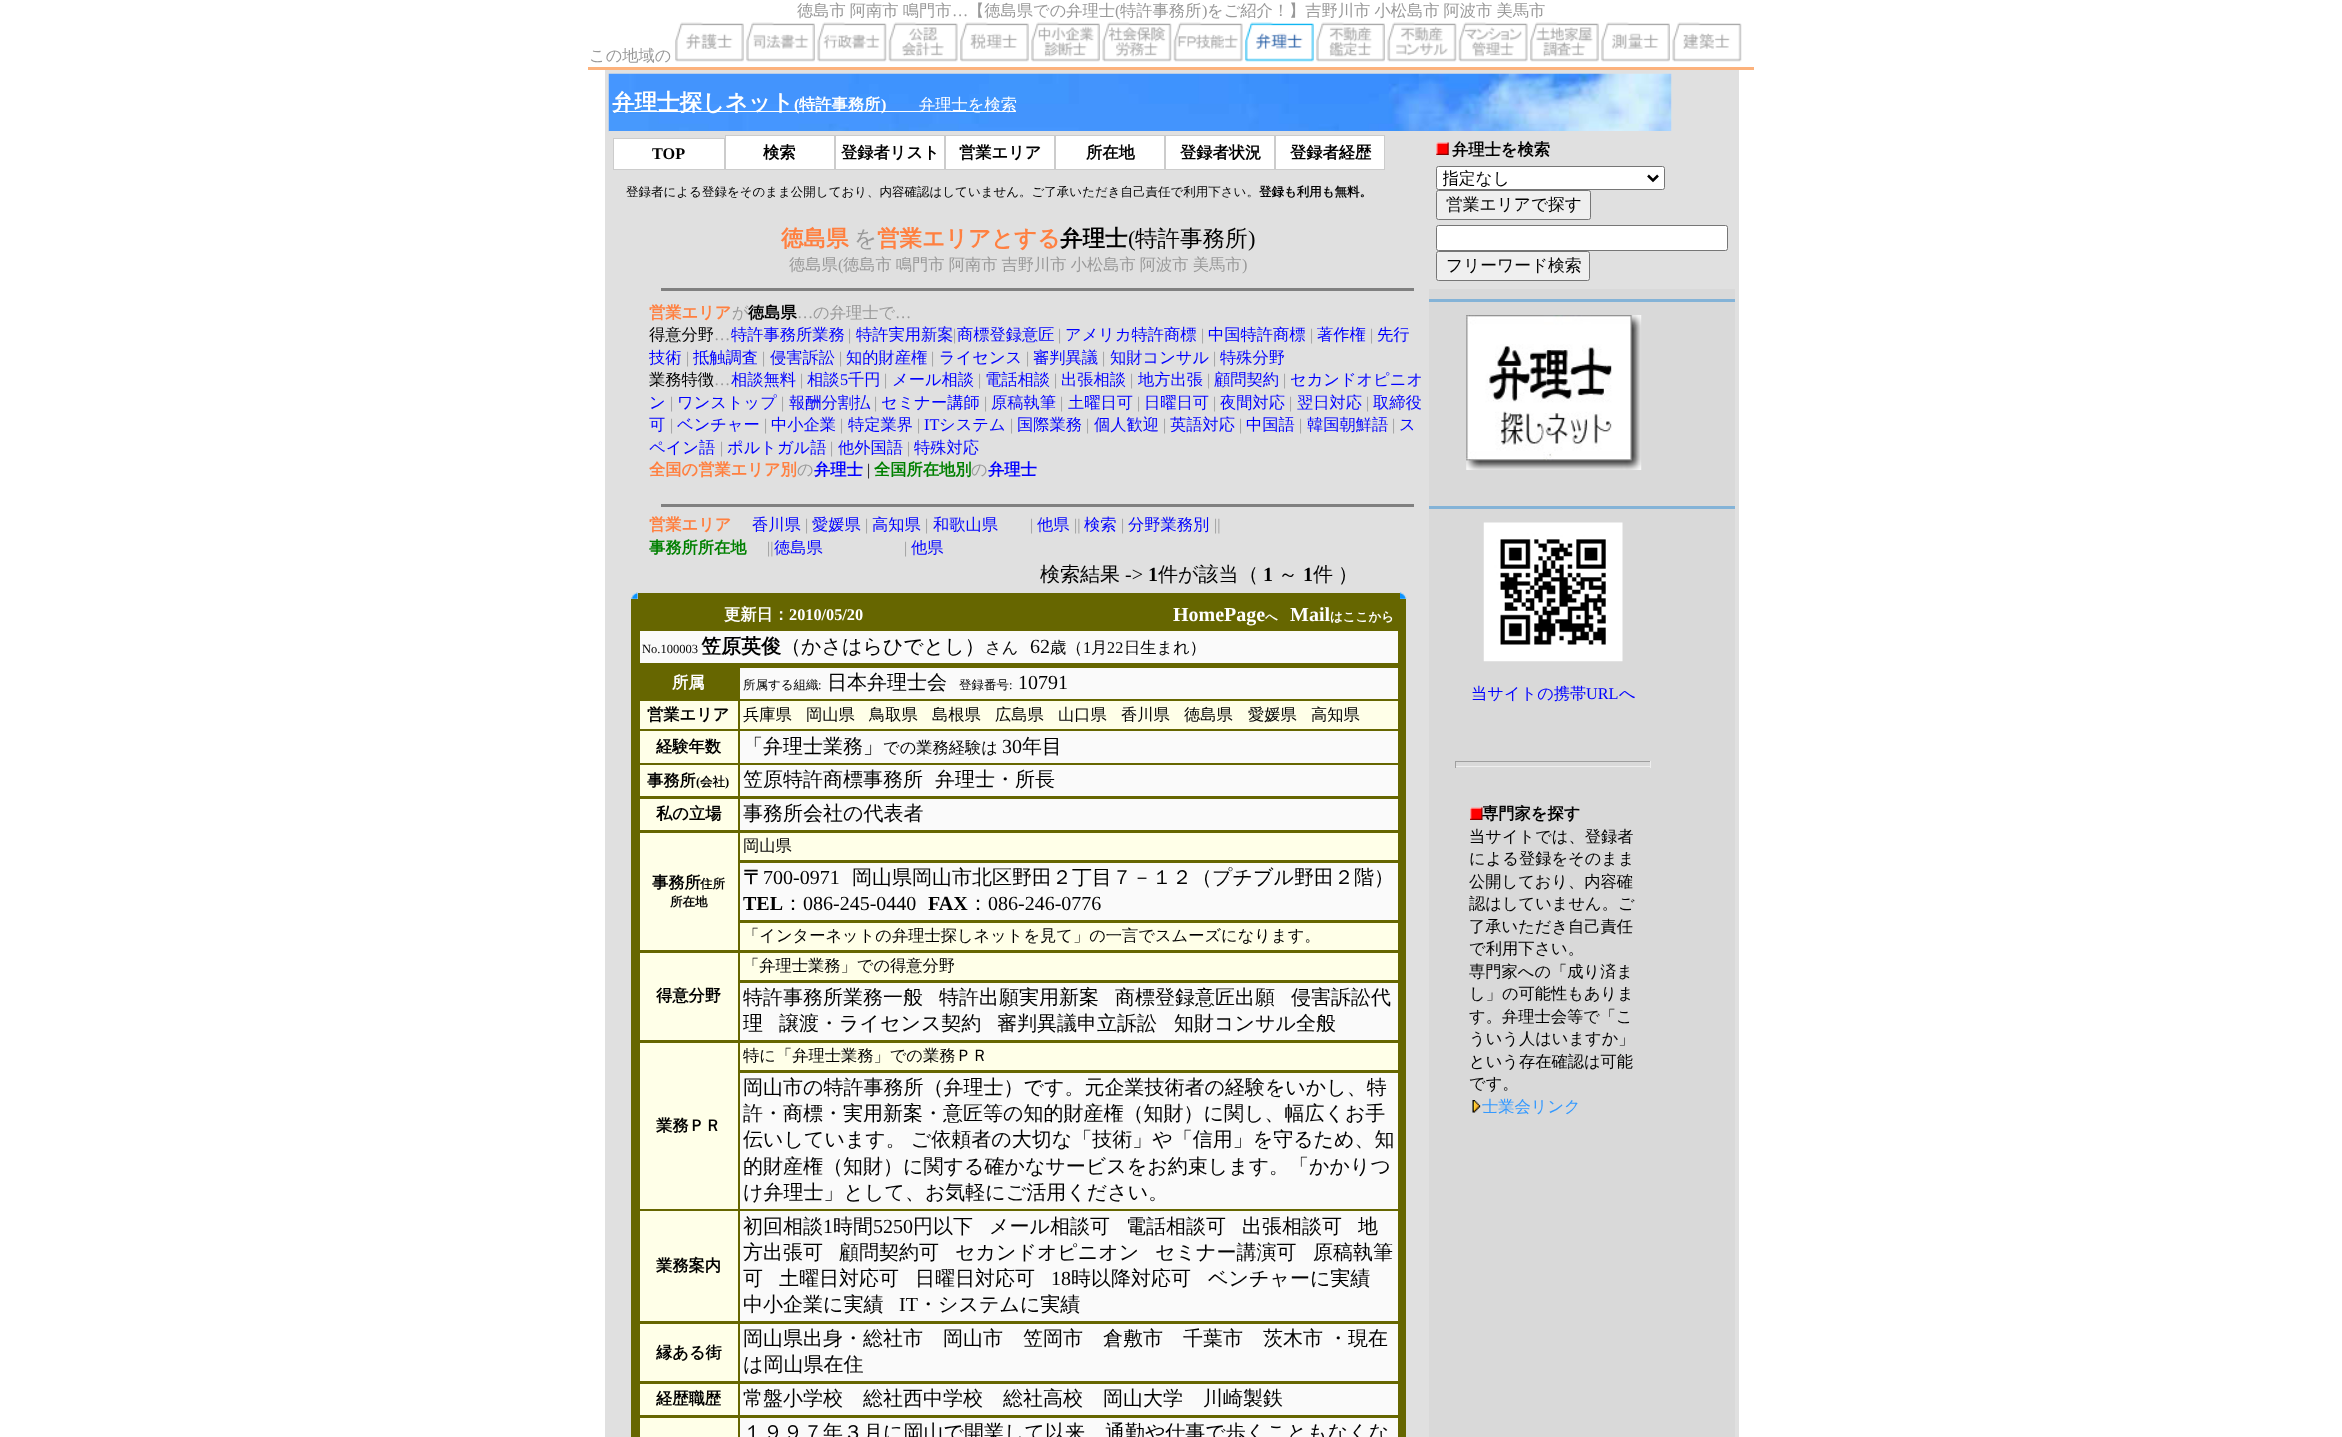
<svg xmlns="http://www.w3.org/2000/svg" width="2342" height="1437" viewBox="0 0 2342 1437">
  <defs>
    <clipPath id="clip1"><path d="M1443 168h201v21H1443z"/></clipPath>
  </defs>
  <rect width="100%" height="100%" fill="#fff"/>
  <image x="675" y="22" width="69" height="40" href="img/1.png"/>
  <image x="746" y="22" width="69" height="40" href="img/2.png"/>
  <image x="817" y="22" width="70" height="40" href="img/3.png"/>
  <image x="888" y="22" width="70" height="40" href="img/4.png"/>
  <image x="960" y="22" width="69" height="40" href="img/5.png"/>
  <image x="1031" y="22" width="69" height="40" href="img/6.png"/>
  <image x="1102" y="22" width="70" height="40" href="img/7.png"/>
  <image x="1173" y="22" width="70" height="40" href="img/8.png"/>
  <image x="1245" y="22" width="69" height="40" href="img/9.png"/>
  <image x="1316" y="22" width="69" height="40" href="img/10.png"/>
  <image x="1387" y="22" width="70" height="40" href="img/11.png"/>
  <image x="1458" y="22" width="70" height="40" href="img/12.png"/>
  <image x="1530" y="22" width="69" height="40" href="img/13.png"/>
  <image x="1601" y="22" width="69" height="40" href="img/14.png"/>
  <image x="1672" y="22" width="70" height="40" href="img/15.png"/>
  <path d="M588 67h1166v3H588z" fill="#fcb27c"/>
  <path d="M605 70h1134v1367H605z" fill="#e0e0e0"/>
  <image x="608" y="73" width="1064" height="59" href="img/16.png"/>
  <path d="M613 111h403v1H613z" fill="#fff"/>
  <path d="M609 131h1063v1H609z" fill="#e0e0e0"/>
  <path d="M613 138h112v32H613z" fill="#ccc"/>
  <path d="M614 139h110v30H614z" fill="#fff"/>
  <path d="M725 135h660v35H725z" fill="#ccc"/>
  <path d="M726 136h108v33H726z" fill="#fff"/>
  <path d="M836 136h108v33H836z" fill="#fff"/>
  <path d="M946 136h108v33H946z" fill="#fff"/>
  <path d="M1056 136h108v33H1056z" fill="#fff"/>
  <path d="M1166 136h108v33H1166z" fill="#fff"/>
  <path d="M1276 136h108v33H1276z" fill="#fff"/>
  <path d="M661 288h753v3H661z" fill="#808080"/>
  <path d="M661 504h753v3H661z" fill="#808080"/>
  <image x="631" y="592" width="7" height="7" href="img/17.png"/>
  <path d="M638 593h762v6H638z" fill="#660"/>
  <image x="1400" y="592" width="7" height="7" href="img/18.png"/>
  <path d="M631 599h775v66H631z" fill="#660"/>
  <path d="M640 631h758v32H640z" fill="#fafafa"/>
  <path d="M631 665h775v772H631z" fill="#660"/>
  <path d="M740 668h658v31H740z" fill="#fafafa"/>
  <path d="M640 701h98v28H640z" fill="#ffffe8"/>
  <path d="M740 701h658v28H740z" fill="#ffffe8"/>
  <path d="M640 731h98v32H640z" fill="#ffffe8"/>
  <path d="M740 731h658v32H740z" fill="#fafafa"/>
  <path d="M640 765h98v31H640z" fill="#ffffe8"/>
  <path d="M740 765h658v31H740z" fill="#fafafa"/>
  <path d="M640 799h98v31H640z" fill="#ffffe8"/>
  <path d="M740 799h658v31H740z" fill="#fafafa"/>
  <path d="M740 833h658v27H740z" fill="#ffffe8"/>
  <path d="M640 833h98v117H640z" fill="#ffffe8"/>
  <path d="M740 863h658v57H740z" fill="#fafafa"/>
  <path d="M740 923h658v27H740z" fill="#ffffe8"/>
  <path d="M740 953h658v27H740z" fill="#ffffe8"/>
  <path d="M640 953h98v87H640z" fill="#ffffe8"/>
  <path d="M740 983h658v57H740z" fill="#fafafa"/>
  <path d="M740 1043h658v27H740z" fill="#ffffe8"/>
  <path d="M640 1043h98v166H640z" fill="#ffffe8"/>
  <path d="M740 1073h658v136H740z" fill="#fafafa"/>
  <path d="M640 1211h98v110H640z" fill="#ffffe8"/>
  <path d="M740 1211h658v110H740z" fill="#fafafa"/>
  <path d="M640 1324h98v57H640z" fill="#ffffe8"/>
  <path d="M740 1324h658v57H740z" fill="#fafafa"/>
  <path d="M640 1384h98v31H640z" fill="#ffffe8"/>
  <path d="M740 1384h658v31H740z" fill="#fafafa"/>
  <path d="M640 1418h98v19H640z" fill="#ffffe8"/>
  <path d="M740 1418h658v19H740z" fill="#fafafa"/>
  <path d="M1429 289h306v1148H1429z" fill="#d9d9d9"/>
  <image x="1436" y="142" width="13" height="13" href="img/19.png"/>
  <rect x="1436.5" y="166.5" width="228" height="23" rx="2" fill="#fff" stroke="#767676"/>
  <path d="M1648 175.5L1653 180.5L1658 175.5" fill="none" stroke="#000" stroke-width="2.5"/>
  <rect x="1436.5" y="190.5" width="154" height="29" rx="2" fill="#efefef" stroke="#767676"/>
  <rect x="1436.5" y="225.5" width="291" height="25" rx="2" fill="#fff" stroke="#767676"/>
  <rect x="1436.5" y="251.5" width="153" height="29" rx="2" fill="#efefef" stroke="#767676"/>
  <path d="M1429 299h306v3H1429z" fill="#84b3d7"/>
  <image x="1466" y="315" width="176" height="155" href="img/20.png"/>
  <path d="M1429 506h306v3H1429z" fill="#84b3d7"/>
  <image x="1483" y="522" width="140" height="140" href="img/21.png"/>
  <path d="M1455 761h196v1H1455z" fill="#9f9f9f"/>
  <path d="M1650 761h1v7H1650z" fill="#eee"/>
  <path d="M1455 766h196v1H1455z" fill="#eee"/>
  <path d="M1455 761h1v7H1455z" fill="#9f9f9f"/>
  <image x="1470" y="807" width="13" height="13" href="img/22.png"/>
  <image x="1472" y="1100" width="9" height="13" href="img/23.png"/>
  <text x="797" y="16" word-spacing="-0.75" font-family="WenQuanYi Zen Hei" font-size="16.25" font-weight="500" fill="#999">徳島市 阿南市 鳴門市</text>
  <text x="952" y="16" font-family="Liberation Serif" font-size="16.25" fill="#999">…</text>
  <text x="968" y="16" font-family="WenQuanYi Zen Hei" font-size="16.25" font-weight="500" fill="#999">【徳島県での弁理士</text>
  <text x="1115" y="16" font-family="Liberation Serif" font-size="16.25" fill="#999">(</text>
  <text x="1120" y="16" font-family="WenQuanYi Zen Hei" font-size="16.25" font-weight="500" fill="#999">特許事務所</text>
  <text x="1202" y="16" font-family="Liberation Serif" font-size="16.25" fill="#999">)</text>
  <g font-family="WenQuanYi Zen Hei" font-size="16.25" font-weight="500" fill="#999">
    <text x="1207" y="16" word-spacing="-0.75">をご紹介！】吉野川市 小松島市 阿波市 美馬市</text>
    <text x="589" y="61">この地域の</text>
  </g>
  <text x="612" y="110" font-family="WenQuanYi Zen Hei" font-size="22.5" font-weight="bold" fill="#fff">弁理士探しネット</text>
  <text x="794" y="110" font-family="Liberation Serif" font-size="16.25" font-weight="bold" fill="#fff">(</text>
  <text x="799" y="110" font-family="WenQuanYi Zen Hei" font-size="16.25" font-weight="bold" fill="#fff">特許事務所</text>
  <text x="881" y="110" font-family="Liberation Serif" font-size="16.25" font-weight="bold" fill="#fff">)</text>
  <text x="919" y="110" font-family="WenQuanYi Zen Hei" font-size="16.25" font-weight="500" fill="#fff">弁理士を検索</text>
  <text x="652" y="159" font-family="Liberation Serif" font-size="16.25" font-weight="bold" fill="#000">TOP</text>
  <g font-family="WenQuanYi Zen Hei" font-size="16.25" font-weight="bold" fill="#000">
    <text x="763" y="158">検索</text>
    <text x="841" y="158">登録者リスト</text>
    <text x="959" y="158">営業エリア</text>
    <text x="1086" y="158">所在地</text>
    <text x="1180" y="158">登録者状況</text>
    <text x="1290" y="158">登録者経歴</text>
  </g>
  <text x="626" y="196" font-family="WenQuanYi Zen Hei" font-size="12.5" font-weight="500" fill="#000">登録者による登録をそのまま公開しており、内容確認はしていません。ご了承いただき自己責任で利用下さい。</text>
  <text x="1259" y="196" font-family="WenQuanYi Zen Hei" font-size="12.5" font-weight="bold" fill="#000">登録も利用も無料。</text>
  <text x="1060" y="246" font-family="WenQuanYi Zen Hei" font-size="22.5" font-weight="bold" fill="#000">弁理士</text>
  <text x="1128" y="246" font-family="Liberation Serif" font-size="22.5" fill="#000">(</text>
  <text x="1135" y="246" font-family="WenQuanYi Zen Hei" font-size="22.5" font-weight="500" fill="#000">特許事務所</text>
  <text x="1248" y="246" font-family="Liberation Serif" font-size="22.5" fill="#000">)</text>
  <text x="789" y="270" font-family="WenQuanYi Zen Hei" font-size="16.25" font-weight="500" fill="#999">徳島県</text>
  <text x="838" y="270" font-family="Liberation Serif" font-size="16.25" fill="#999">(</text>
  <text x="843" y="270" word-spacing="-0.75" font-family="WenQuanYi Zen Hei" font-size="16.25" font-weight="500" fill="#999">徳島市 鳴門市 阿南市 吉野川市 小松島市 阿波市 美馬市</text>
  <text x="1242" y="270" font-family="Liberation Serif" font-size="16.25" fill="#999">)</text>
  <text x="649" y="318" font-family="WenQuanYi Zen Hei" font-size="16.25" font-weight="bold" fill="#ff8040">営業エリア</text>
  <text x="732" y="318" font-family="WenQuanYi Zen Hei" font-size="16.25" font-weight="500" fill="#999">が</text>
  <text x="748" y="318" font-family="WenQuanYi Zen Hei" font-size="16.25" font-weight="bold" fill="#000">徳島県</text>
  <text x="797" y="318" font-family="Liberation Serif" font-size="16.25" fill="#999">…</text>
  <text x="813" y="318" font-family="WenQuanYi Zen Hei" font-size="16.25" font-weight="500" fill="#999">の弁理士で</text>
  <text x="895" y="318" font-family="Liberation Serif" font-size="16.25" fill="#999">…</text>
  <text x="649" y="340" font-family="WenQuanYi Zen Hei" font-size="16.25" font-weight="500" fill="#000">得意分野</text>
  <text x="714" y="340" font-family="Liberation Serif" font-size="16.25" fill="#999">…</text>
  <text x="731" y="340" font-family="WenQuanYi Zen Hei" font-size="16.25" font-weight="500" fill="#00f">特許事務所業務</text>
  <text x="848" y="340" font-family="Liberation Serif" font-size="16.25" fill="#999">|</text>
  <text x="856" y="340" font-family="WenQuanYi Zen Hei" font-size="16.25" font-weight="500" fill="#00f">特許実用新案</text>
  <text x="953" y="340" font-family="Liberation Serif" font-size="16.25" fill="#999">|</text>
  <text x="957" y="340" font-family="WenQuanYi Zen Hei" font-size="16.25" font-weight="500" fill="#00f">商標登録意匠</text>
  <text x="1058" y="340" font-family="Liberation Serif" font-size="16.25" fill="#999">|</text>
  <text x="1065" y="340" font-family="WenQuanYi Zen Hei" font-size="16.25" font-weight="500" fill="#00f">アメリカ特許商標</text>
  <text x="1201" y="340" font-family="Liberation Serif" font-size="16.25" fill="#999">|</text>
  <text x="1208" y="340" font-family="WenQuanYi Zen Hei" font-size="16.25" font-weight="500" fill="#00f">中国特許商標</text>
  <text x="1310" y="340" font-family="Liberation Serif" font-size="16.25" fill="#999">|</text>
  <text x="1317" y="340" font-family="WenQuanYi Zen Hei" font-size="16.25" font-weight="500" fill="#00f">著作権</text>
  <text x="1370" y="340" font-family="Liberation Serif" font-size="16.25" fill="#999">|</text>
  <g font-family="WenQuanYi Zen Hei" font-size="16.25" font-weight="500" fill="#00f">
    <text x="1377" y="340">先行</text>
    <text x="649" y="363">技術</text>
  </g>
  <text x="686" y="363" font-family="Liberation Serif" font-size="16.25" fill="#999">|</text>
  <text x="693" y="363" font-family="WenQuanYi Zen Hei" font-size="16.25" font-weight="500" fill="#00f">抵触調査</text>
  <text x="762" y="363" font-family="Liberation Serif" font-size="16.25" fill="#999">|</text>
  <text x="770" y="363" font-family="WenQuanYi Zen Hei" font-size="16.25" font-weight="500" fill="#00f">侵害訴訟</text>
  <text x="839" y="363" font-family="Liberation Serif" font-size="16.25" fill="#999">|</text>
  <text x="846" y="363" font-family="WenQuanYi Zen Hei" font-size="16.25" font-weight="500" fill="#00f">知的財産権</text>
  <text x="931" y="363" font-family="Liberation Serif" font-size="16.25" fill="#999">|</text>
  <text x="939" y="363" font-family="WenQuanYi Zen Hei" font-size="16.25" font-weight="500" fill="#00f">ライセンス</text>
  <text x="1026" y="363" font-family="Liberation Serif" font-size="16.25" fill="#999">|</text>
  <text x="1033" y="363" font-family="WenQuanYi Zen Hei" font-size="16.25" font-weight="500" fill="#00f">審判異議</text>
  <text x="1102" y="363" font-family="Liberation Serif" font-size="16.25" fill="#999">|</text>
  <text x="1110" y="363" font-family="WenQuanYi Zen Hei" font-size="16.25" font-weight="500" fill="#00f">知財コンサル</text>
  <text x="1213" y="363" font-family="Liberation Serif" font-size="16.25" fill="#999">|</text>
  <text x="1220" y="363" font-family="WenQuanYi Zen Hei" font-size="16.25" font-weight="500" fill="#00f">特殊分野</text>
  <text x="649" y="385" font-family="WenQuanYi Zen Hei" font-size="16.25" font-weight="500" fill="#000">業務特徴</text>
  <text x="714" y="385" font-family="Liberation Serif" font-size="16.25" fill="#999">…</text>
  <text x="731" y="385" font-family="WenQuanYi Zen Hei" font-size="16.25" font-weight="500" fill="#00f">相談無料</text>
  <text x="800" y="385" font-family="Liberation Serif" font-size="16.25" fill="#999">|</text>
  <text x="807" y="385" font-family="WenQuanYi Zen Hei" font-size="16.25" font-weight="500" fill="#00f">相談</text>
  <text x="840" y="385" font-family="Liberation Serif" font-size="16.25" fill="#00f">5</text>
  <text x="848" y="385" font-family="WenQuanYi Zen Hei" font-size="16.25" font-weight="500" fill="#00f">千円</text>
  <text x="884" y="385" font-family="Liberation Serif" font-size="16.25" fill="#999">|</text>
  <text x="892" y="385" font-family="WenQuanYi Zen Hei" font-size="16.25" font-weight="500" fill="#00f">メール相談</text>
  <text x="978" y="385" font-family="Liberation Serif" font-size="16.25" fill="#999">|</text>
  <text x="985" y="385" font-family="WenQuanYi Zen Hei" font-size="16.25" font-weight="500" fill="#00f">電話相談</text>
  <text x="1054" y="385" font-family="Liberation Serif" font-size="16.25" fill="#999">|</text>
  <text x="1061" y="385" font-family="WenQuanYi Zen Hei" font-size="16.25" font-weight="500" fill="#00f">出張相談</text>
  <text x="1130" y="385" font-family="Liberation Serif" font-size="16.25" fill="#999">|</text>
  <text x="1138" y="385" font-family="WenQuanYi Zen Hei" font-size="16.25" font-weight="500" fill="#00f">地方出張</text>
  <text x="1207" y="385" font-family="Liberation Serif" font-size="16.25" fill="#999">|</text>
  <text x="1214" y="385" font-family="WenQuanYi Zen Hei" font-size="16.25" font-weight="500" fill="#00f">顧問契約</text>
  <text x="1283" y="385" font-family="Liberation Serif" font-size="16.25" fill="#999">|</text>
  <g font-family="WenQuanYi Zen Hei" font-size="16.25" font-weight="500" fill="#00f">
    <text x="1290" y="385">セカンドオピニオ</text>
    <text x="649" y="408">ン</text>
  </g>
  <text x="670" y="408" font-family="Liberation Serif" font-size="16.25" fill="#999">|</text>
  <text x="677" y="408" font-family="WenQuanYi Zen Hei" font-size="16.25" font-weight="500" fill="#00f">ワンストップ</text>
  <text x="781" y="408" font-family="Liberation Serif" font-size="16.25" fill="#999">|</text>
  <text x="789" y="408" font-family="WenQuanYi Zen Hei" font-size="16.25" font-weight="500" fill="#00f">報酬分割払</text>
  <text x="874" y="408" font-family="Liberation Serif" font-size="16.25" fill="#999">|</text>
  <text x="881" y="408" font-family="WenQuanYi Zen Hei" font-size="16.25" font-weight="500" fill="#00f">セミナー講師</text>
  <text x="984" y="408" font-family="Liberation Serif" font-size="16.25" fill="#999">|</text>
  <text x="991" y="408" font-family="WenQuanYi Zen Hei" font-size="16.25" font-weight="500" fill="#00f">原稿執筆</text>
  <text x="1060" y="408" font-family="Liberation Serif" font-size="16.25" fill="#999">|</text>
  <text x="1068" y="408" font-family="WenQuanYi Zen Hei" font-size="16.25" font-weight="500" fill="#00f">土曜日可</text>
  <text x="1137" y="408" font-family="Liberation Serif" font-size="16.25" fill="#999">|</text>
  <text x="1144" y="408" font-family="WenQuanYi Zen Hei" font-size="16.25" font-weight="500" fill="#00f">日曜日可</text>
  <text x="1213" y="408" font-family="Liberation Serif" font-size="16.25" fill="#999">|</text>
  <text x="1220" y="408" font-family="WenQuanYi Zen Hei" font-size="16.25" font-weight="500" fill="#00f">夜間対応</text>
  <text x="1289" y="408" font-family="Liberation Serif" font-size="16.25" fill="#999">|</text>
  <text x="1297" y="408" font-family="WenQuanYi Zen Hei" font-size="16.25" font-weight="500" fill="#00f">翌日対応</text>
  <text x="1366" y="408" font-family="Liberation Serif" font-size="16.25" fill="#999">|</text>
  <g font-family="WenQuanYi Zen Hei" font-size="16.25" font-weight="500" fill="#00f">
    <text x="1373" y="408">取締役</text>
    <text x="649" y="430">可</text>
  </g>
  <text x="670" y="430" font-family="Liberation Serif" font-size="16.25" fill="#999">|</text>
  <text x="677" y="430" font-family="WenQuanYi Zen Hei" font-size="16.25" font-weight="500" fill="#00f">ベンチャー</text>
  <text x="764" y="430" font-family="Liberation Serif" font-size="16.25" fill="#999">|</text>
  <text x="771" y="430" font-family="WenQuanYi Zen Hei" font-size="16.25" font-weight="500" fill="#00f">中小企業</text>
  <text x="840" y="430" font-family="Liberation Serif" font-size="16.25" fill="#999">|</text>
  <text x="848" y="430" font-family="WenQuanYi Zen Hei" font-size="16.25" font-weight="500" fill="#00f">特定業界</text>
  <text x="917" y="430" font-family="Liberation Serif" font-size="16.25" fill="#999">|</text>
  <text x="924" y="430" font-family="Liberation Serif" font-size="16.25" fill="#00f">IT</text>
  <text x="939" y="430" font-family="WenQuanYi Zen Hei" font-size="16.25" font-weight="500" fill="#00f">システム</text>
  <text x="1010" y="430" font-family="Liberation Serif" font-size="16.25" fill="#999">|</text>
  <text x="1017" y="430" font-family="WenQuanYi Zen Hei" font-size="16.25" font-weight="500" fill="#00f">国際業務</text>
  <text x="1086" y="430" font-family="Liberation Serif" font-size="16.25" fill="#999">|</text>
  <text x="1094" y="430" font-family="WenQuanYi Zen Hei" font-size="16.25" font-weight="500" fill="#00f">個人歓迎</text>
  <text x="1163" y="430" font-family="Liberation Serif" font-size="16.25" fill="#999">|</text>
  <text x="1170" y="430" font-family="WenQuanYi Zen Hei" font-size="16.25" font-weight="500" fill="#00f">英語対応</text>
  <text x="1239" y="430" font-family="Liberation Serif" font-size="16.25" fill="#999">|</text>
  <text x="1246" y="430" font-family="WenQuanYi Zen Hei" font-size="16.25" font-weight="500" fill="#00f">中国語</text>
  <text x="1299" y="430" font-family="Liberation Serif" font-size="16.25" fill="#999">|</text>
  <text x="1307" y="430" font-family="WenQuanYi Zen Hei" font-size="16.25" font-weight="500" fill="#00f">韓国朝鮮語</text>
  <text x="1392" y="430" font-family="Liberation Serif" font-size="16.25" fill="#999">|</text>
  <g font-family="WenQuanYi Zen Hei" font-size="16.25" font-weight="500" fill="#00f">
    <text x="1399" y="430">ス</text>
    <text x="649" y="453">ペイン語</text>
  </g>
  <text x="720" y="453" font-family="Liberation Serif" font-size="16.25" fill="#999">|</text>
  <text x="727" y="453" font-family="WenQuanYi Zen Hei" font-size="16.25" font-weight="500" fill="#00f">ポルトガル語</text>
  <text x="830" y="453" font-family="Liberation Serif" font-size="16.25" fill="#999">|</text>
  <text x="838" y="453" font-family="WenQuanYi Zen Hei" font-size="16.25" font-weight="500" fill="#00f">他外国語</text>
  <text x="907" y="453" font-family="Liberation Serif" font-size="16.25" fill="#999">|</text>
  <text x="914" y="453" font-family="WenQuanYi Zen Hei" font-size="16.25" font-weight="500" fill="#00f">特殊対応</text>
  <text x="649" y="475" font-family="WenQuanYi Zen Hei" font-size="16.25" font-weight="bold" fill="#ff8040">全国の営業エリア別</text>
  <text x="797" y="475" font-family="WenQuanYi Zen Hei" font-size="16.25" font-weight="500" fill="#999">の</text>
  <text x="814" y="475" font-family="WenQuanYi Zen Hei" font-size="16.25" font-weight="bold" fill="#00f">弁理士</text>
  <text x="867" y="475" font-family="Liberation Serif" font-size="16.25" fill="#000">|</text>
  <text x="874" y="475" font-family="WenQuanYi Zen Hei" font-size="16.25" font-weight="bold" fill="#008000">全国所在地別</text>
  <text x="971" y="475" font-family="WenQuanYi Zen Hei" font-size="16.25" font-weight="500" fill="#999">の</text>
  <text x="988" y="475" font-family="WenQuanYi Zen Hei" font-size="16.25" font-weight="bold" fill="#00f">弁理士</text>
  <text x="649" y="530" font-family="WenQuanYi Zen Hei" font-size="16.25" font-weight="bold" fill="#ff8040">営業エリア</text>
  <text x="752" y="530" font-family="WenQuanYi Zen Hei" font-size="16.25" font-weight="500" fill="#00f">香川県</text>
  <text x="805" y="530" font-family="Liberation Serif" font-size="16.25" fill="#999">|</text>
  <text x="812" y="530" font-family="WenQuanYi Zen Hei" font-size="16.25" font-weight="500" fill="#00f">愛媛県</text>
  <text x="865" y="530" font-family="Liberation Serif" font-size="16.25" fill="#999">|</text>
  <text x="872" y="530" font-family="WenQuanYi Zen Hei" font-size="16.25" font-weight="500" fill="#00f">高知県</text>
  <text x="925" y="530" font-family="Liberation Serif" font-size="16.25" fill="#999">|</text>
  <text x="933" y="530" font-family="WenQuanYi Zen Hei" font-size="16.25" font-weight="500" fill="#00f">和歌山県</text>
  <text x="1030" y="530" font-family="Liberation Serif" font-size="16.25" fill="#999">|</text>
  <text x="1037" y="530" font-family="WenQuanYi Zen Hei" font-size="16.25" font-weight="500" fill="#00f">他県</text>
  <text x="1074" y="530" font-family="Liberation Serif" font-size="16.25" fill="#999">||</text>
  <text x="1084" y="530" font-family="WenQuanYi Zen Hei" font-size="16.25" font-weight="500" fill="#00f">検索</text>
  <text x="1121" y="530" font-family="Liberation Serif" font-size="16.25" fill="#999">|</text>
  <text x="1128" y="530" font-family="WenQuanYi Zen Hei" font-size="16.25" font-weight="500" fill="#00f">分野業務別</text>
  <text x="1214" y="530" font-family="Liberation Serif" font-size="16.25" fill="#999">||</text>
  <text x="649" y="553" font-family="WenQuanYi Zen Hei" font-size="16.25" font-weight="bold" fill="#008000">事務所所在地</text>
  <text x="767" y="553" font-family="Liberation Serif" font-size="16.25" fill="#999">||</text>
  <text x="774" y="553" font-family="WenQuanYi Zen Hei" font-size="16.25" font-weight="500" fill="#00f">徳島県</text>
  <text x="904" y="553" font-family="Liberation Serif" font-size="16.25" fill="#999">|</text>
  <text x="911" y="553" font-family="WenQuanYi Zen Hei" font-size="16.25" font-weight="500" fill="#00f">他県</text>
  <text x="1040" y="581" font-family="WenQuanYi Zen Hei" font-size="20" font-weight="500" fill="#000">検索結果</text>
  <text x="1125" y="581" font-family="Liberation Serif" font-size="20" fill="#000">-&gt;</text>
  <text x="1148" y="581" font-family="Liberation Serif" font-size="20" font-weight="bold" fill="#000">1</text>
  <text x="1158" y="581" font-family="WenQuanYi Zen Hei" font-size="20" font-weight="500" fill="#000">件が該当（</text>
  <text x="1263" y="581" font-family="Liberation Serif" font-size="20" font-weight="bold" fill="#000">1</text>
  <text x="1278" y="581" font-family="WenQuanYi Zen Hei" font-size="20" font-weight="500" fill="#000">～</text>
  <text x="1303" y="581" font-family="Liberation Serif" font-size="20" font-weight="bold" fill="#000">1</text>
  <text x="1313" y="581" word-spacing="-1" font-family="WenQuanYi Zen Hei" font-size="20" font-weight="500" fill="#000">件 ）</text>
  <text x="724" y="620" font-family="WenQuanYi Zen Hei" font-size="16.25" font-weight="bold" fill="#fff">更新日：</text>
  <text x="789" y="620" font-family="Liberation Serif" font-size="16.25" font-weight="bold" fill="#fff">2010/05/20</text>
  <text x="1173" y="621" font-family="Liberation Serif" font-size="20" font-weight="bold" fill="#fff">HomePage</text>
  <text x="1265" y="621" font-family="WenQuanYi Zen Hei" font-size="12.5" font-weight="bold" fill="#fff">へ</text>
  <text x="1290" y="621" font-family="Liberation Serif" font-size="20" font-weight="bold" fill="#fff">Mail</text>
  <text x="1330" y="621" font-family="WenQuanYi Zen Hei" font-size="12.5" font-weight="bold" fill="#fff">はここから</text>
  <text x="642" y="653" font-family="Liberation Serif" font-size="12.5" fill="#000">No.100003</text>
  <text x="701" y="653" font-family="WenQuanYi Zen Hei" font-size="20" font-weight="bold" fill="#000">笠原英俊</text>
  <text x="781" y="653" font-family="WenQuanYi Zen Hei" font-size="20" font-weight="500" fill="#000">（かさはらひでとし）</text>
  <text x="985" y="653" font-family="WenQuanYi Zen Hei" font-size="16.25" font-weight="500" fill="#000">さん</text>
  <text x="1030" y="653" font-family="Liberation Serif" font-size="20" fill="#000">62</text>
  <text x="1050" y="653" font-family="WenQuanYi Zen Hei" font-size="16.25" font-weight="500" fill="#000">歳（</text>
  <text x="1083" y="653" font-family="Liberation Serif" font-size="16.25" fill="#000">1</text>
  <text x="1091" y="653" font-family="WenQuanYi Zen Hei" font-size="16.25" font-weight="500" fill="#000">月</text>
  <text x="1107" y="653" font-family="Liberation Serif" font-size="16.25" fill="#000">22</text>
  <text x="1124" y="653" font-family="WenQuanYi Zen Hei" font-size="16.25" font-weight="500" fill="#000">日生まれ）</text>
  <text x="672" y="688" font-family="WenQuanYi Zen Hei" font-size="16.25" font-weight="bold" fill="#fff">所属</text>
  <text x="743" y="689" font-family="WenQuanYi Zen Hei" font-size="12.5" font-weight="500" fill="#000">所属する組織</text>
  <text x="818" y="689" font-family="Liberation Serif" font-size="12.5" fill="#000">:</text>
  <text x="827" y="689" font-family="WenQuanYi Zen Hei" font-size="20" font-weight="500" fill="#000">日本弁理士会</text>
  <text x="959" y="689" font-family="WenQuanYi Zen Hei" font-size="12.5" font-weight="500" fill="#000">登録番号</text>
  <text x="1009" y="689" font-family="Liberation Serif" font-size="12.5" fill="#000">:</text>
  <text x="1018" y="689" font-family="Liberation Serif" font-size="20" fill="#000">10791</text>
  <text x="647" y="720" font-family="WenQuanYi Zen Hei" font-size="16.25" font-weight="bold" fill="#000">営業エリア</text>
  <g font-family="WenQuanYi Zen Hei" font-size="16.25" font-weight="500" fill="#000">
    <text x="743" y="720">兵庫県</text>
    <text x="806" y="720">岡山県</text>
    <text x="869" y="720">鳥取県</text>
    <text x="932" y="720">島根県</text>
    <text x="995" y="720">広島県</text>
    <text x="1058" y="720">山口県</text>
    <text x="1121" y="720">香川県</text>
    <text x="1184" y="720">徳島県</text>
    <text x="1248" y="720">愛媛県</text>
    <text x="1311" y="720">高知県</text>
  </g>
  <text x="656" y="752" font-family="WenQuanYi Zen Hei" font-size="16.25" font-weight="bold" fill="#000">経験年数</text>
  <text x="743" y="753" font-family="WenQuanYi Zen Hei" font-size="20" font-weight="500" fill="#000">「弁理士業務」</text>
  <text x="883" y="753" font-family="WenQuanYi Zen Hei" font-size="16.25" font-weight="500" fill="#000">での業務経験は</text>
  <text x="1002" y="753" font-family="Liberation Serif" font-size="20" fill="#000">30</text>
  <text x="1022" y="753" font-family="WenQuanYi Zen Hei" font-size="20" font-weight="500" fill="#000">年目</text>
  <text x="647" y="786" font-family="WenQuanYi Zen Hei" font-size="16.25" font-weight="bold" fill="#000">事務所</text>
  <text x="696" y="786" font-family="Liberation Serif" font-size="12.5" font-weight="bold" fill="#000">(</text>
  <text x="700" y="786" font-family="WenQuanYi Zen Hei" font-size="12.5" font-weight="bold" fill="#000">会社</text>
  <text x="725" y="786" font-family="Liberation Serif" font-size="12.5" font-weight="bold" fill="#000">)</text>
  <g font-family="WenQuanYi Zen Hei" font-size="20" font-weight="500" fill="#000">
    <text x="743" y="786">笠原特許商標事務所</text>
    <text x="935" y="786">弁理士・所長</text>
  </g>
  <text x="656" y="819" font-family="WenQuanYi Zen Hei" font-size="16.25" font-weight="bold" fill="#000">私の立場</text>
  <text x="743" y="820" font-family="WenQuanYi Zen Hei" font-size="20" font-weight="500" fill="#000">事務所会社の代表者</text>
  <text x="743" y="851" font-family="WenQuanYi Zen Hei" font-size="16.25" font-weight="500" fill="#000">岡山県</text>
  <text x="652" y="888" font-family="WenQuanYi Zen Hei" font-size="16.25" font-weight="bold" fill="#000">事務所</text>
  <g font-family="WenQuanYi Zen Hei" font-size="12.5" font-weight="bold" fill="#000">
    <text x="700" y="888">住所</text>
    <text x="670" y="906">所在地</text>
  </g>
  <text x="743" y="884" font-family="WenQuanYi Zen Hei" font-size="20" font-weight="bold" fill="#000">〒</text>
  <text x="763" y="884" font-family="Liberation Serif" font-size="20" fill="#000">700-0971</text>
  <text x="852" y="884" font-family="WenQuanYi Zen Hei" font-size="20" font-weight="500" fill="#000">岡山県岡山市北区野田２丁目７－１２（プチブル野田２階）</text>
  <text x="743" y="910" font-family="Liberation Serif" font-size="20" font-weight="bold" fill="#000">TEL</text>
  <text x="783" y="910" font-family="WenQuanYi Zen Hei" font-size="20" font-weight="500" fill="#000">：</text>
  <text x="803" y="910" font-family="Liberation Serif" font-size="20" fill="#000">086-245-0440</text>
  <text x="928" y="910" font-family="Liberation Serif" font-size="20" font-weight="bold" fill="#000">FAX</text>
  <text x="968" y="910" font-family="WenQuanYi Zen Hei" font-size="20" font-weight="500" fill="#000">：</text>
  <text x="988" y="910" font-family="Liberation Serif" font-size="20" fill="#000">086-246-0776</text>
  <g font-family="WenQuanYi Zen Hei" font-size="16.25" font-weight="500" fill="#000">
    <text x="743" y="941">「インターネットの弁理士探しネットを見て」の一言でスムーズになります。</text>
    <text x="743" y="971">「弁理士業務」での得意分野</text>
  </g>
  <text x="656" y="1001" font-family="WenQuanYi Zen Hei" font-size="16.25" font-weight="bold" fill="#000">得意分野</text>
  <g font-family="WenQuanYi Zen Hei" font-size="20" font-weight="500" fill="#000">
    <text x="743" y="1004">特許事務所業務一般</text>
    <text x="939" y="1004">特許出願実用新案</text>
    <text x="1115" y="1004">商標登録意匠出願</text>
    <text x="1291" y="1004">侵害訴訟代</text>
    <text x="743" y="1030">理</text>
    <text x="779" y="1030">譲渡・ライセンス契約</text>
    <text x="997" y="1030">審判異議申立訴訟</text>
    <text x="1174" y="1030">知財コンサル全般</text>
  </g>
  <text x="743" y="1061" font-family="WenQuanYi Zen Hei" font-size="16.25" font-weight="500" fill="#000">特に「弁理士業務」での業務ＰＲ</text>
  <text x="656" y="1131" font-family="WenQuanYi Zen Hei" font-size="16.25" font-weight="bold" fill="#000">業務ＰＲ</text>
  <g font-family="WenQuanYi Zen Hei" font-size="20" font-weight="500" fill="#000">
    <text x="743" y="1094">岡山市の特許事務所（弁理士）です。元企業技術者の経験をいかし、特</text>
    <text x="743" y="1120">許・商標・実用新案・意匠等の知的財産権（知財）に関し、幅広くお手</text>
    <text x="743" y="1146" word-spacing="-1">伝いしています。 ご依頼者の大切な「技術」や「信用」を守るため、知</text>
    <text x="743" y="1173">的財産権（知財）に関する確かなサービスをお約束します。「かかりつ</text>
    <text x="743" y="1199">け弁理士」として、お気軽にご活用ください。</text>
  </g>
  <text x="656" y="1271" font-family="WenQuanYi Zen Hei" font-size="16.25" font-weight="bold" fill="#000">業務案内</text>
  <text x="743" y="1233" font-family="WenQuanYi Zen Hei" font-size="20" font-weight="500" fill="#000">初回相談</text>
  <text x="823" y="1233" font-family="Liberation Serif" font-size="20" fill="#000">1</text>
  <text x="833" y="1233" font-family="WenQuanYi Zen Hei" font-size="20" font-weight="500" fill="#000">時間</text>
  <text x="873" y="1233" font-family="Liberation Serif" font-size="20" fill="#000">5250</text>
  <g font-family="WenQuanYi Zen Hei" font-size="20" font-weight="500" fill="#000">
    <text x="913" y="1233">円以下</text>
    <text x="989" y="1233">メール相談可</text>
    <text x="1126" y="1233">電話相談可</text>
    <text x="1242" y="1233">出張相談可</text>
    <text x="1358" y="1233">地</text>
    <text x="743" y="1259">方出張可</text>
    <text x="839" y="1259">顧問契約可</text>
    <text x="955" y="1259">セカンドオピニオン</text>
    <text x="1155" y="1259">セミナー講演可</text>
    <text x="1313" y="1259">原稿執筆</text>
    <text x="743" y="1285">可</text>
    <text x="779" y="1285">土曜日対応可</text>
    <text x="915" y="1285">日曜日対応可</text>
  </g>
  <text x="1051" y="1285" font-family="Liberation Serif" font-size="20" fill="#000">18</text>
  <g font-family="WenQuanYi Zen Hei" font-size="20" font-weight="500" fill="#000">
    <text x="1071" y="1285">時以降対応可</text>
    <text x="1208" y="1285">ベンチャーに実績</text>
    <text x="743" y="1311">中小企業に実績</text>
  </g>
  <text x="899" y="1311" font-family="Liberation Serif" font-size="20" fill="#000">IT</text>
  <text x="918" y="1311" font-family="WenQuanYi Zen Hei" font-size="20" font-weight="500" fill="#000">・システムに実績</text>
  <text x="656" y="1358" font-family="WenQuanYi Zen Hei" font-size="16.25" font-weight="bold" fill="#000">縁ある街</text>
  <g font-family="WenQuanYi Zen Hei" font-size="20" font-weight="500" fill="#000">
    <text x="743" y="1345" word-spacing="-1">岡山県出身・総社市　岡山市　笠岡市　倉敷市　千葉市　茨木市 ・現在</text>
    <text x="743" y="1371">は岡山県在住</text>
  </g>
  <text x="656" y="1404" font-family="WenQuanYi Zen Hei" font-size="16.25" font-weight="bold" fill="#000">経歴職歴</text>
  <g font-family="WenQuanYi Zen Hei" font-size="20" font-weight="500" fill="#000">
    <text x="743" y="1405">常盤小学校　総社西中学校　総社高校　岡山大学　川崎製鉄</text>
    <text x="743" y="1439">１９９７年３月に岡山で開業して以来、通勤や仕事で歩くこともなくな</text>
  </g>
  <text x="781" y="246" font-family="WenQuanYi Zen Hei" font-size="22.5" font-weight="bold" fill="#ff8040">徳島県</text>
  <text x="854" y="246" font-family="WenQuanYi Zen Hei" font-size="22.5" font-weight="500" fill="#999">を</text>
  <text x="877" y="246" font-family="WenQuanYi Zen Hei" font-size="22.5" font-weight="bold" fill="#ff8040">営業エリアとする</text>
  <text x="1452" y="155" font-family="WenQuanYi Zen Hei" font-size="16.25" font-weight="bold" fill="#000">弁理士を検索</text>
  <g clip-path="url(#clip1)">
    <text x="1442" y="184" font-family="WenQuanYi Zen Hei" font-size="16.75" font-weight="500" fill="#000">指定なし</text>
  </g>
  <g font-family="WenQuanYi Zen Hei" font-size="16.75" font-weight="500" fill="#000">
    <text x="1446" y="210">営業エリアで探す</text>
    <text x="1446" y="271">フリーワード検索</text>
  </g>
  <text x="1471" y="699" font-family="WenQuanYi Zen Hei" font-size="16.25" font-weight="500" fill="#00f">当サイトの携帯</text>
  <text x="1586" y="699" font-family="Liberation Serif" font-size="16.25" fill="#00f">URL</text>
  <text x="1619" y="699" font-family="WenQuanYi Zen Hei" font-size="16.25" font-weight="500" fill="#00f">へ</text>
  <text x="1482" y="819" font-family="WenQuanYi Zen Hei" font-size="16.25" font-weight="bold" fill="#000">専門家を探す</text>
  <g font-family="WenQuanYi Zen Hei" font-size="16.25" font-weight="500" fill="#000">
    <text x="1469" y="842">当サイトでは、登録者</text>
    <text x="1469" y="864">による登録をそのまま</text>
    <text x="1469" y="887">公開しており、内容確</text>
    <text x="1469" y="909">認はしていません。ご</text>
    <text x="1469" y="932">了承いただき自己責任</text>
    <text x="1469" y="954">で利用下さい。</text>
    <text x="1469" y="977">専門家への「成り済ま</text>
    <text x="1469" y="999">し」の可能性もありま</text>
    <text x="1469" y="1022">す。弁理士会等で「こ</text>
    <text x="1469" y="1044">ういう人はいますか」</text>
    <text x="1469" y="1067">という存在確認は可能</text>
    <text x="1469" y="1089">です。</text>
  </g>
  <text x="1482" y="1112" font-family="WenQuanYi Zen Hei" font-size="16.25" font-weight="500" fill="#39f">士業会リンク</text>
</svg>
